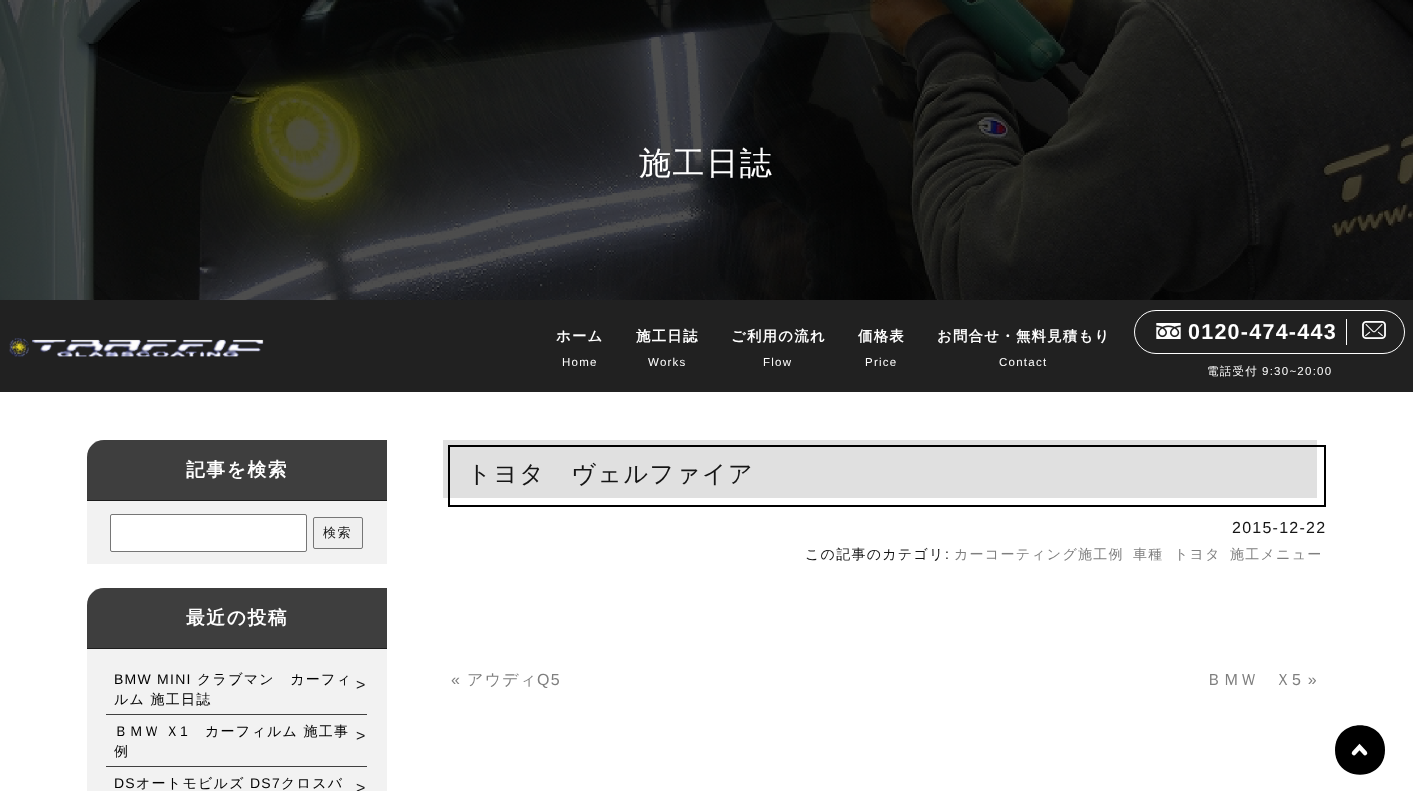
<svg xmlns="http://www.w3.org/2000/svg" width="1413" height="791" viewBox="0 0 1413 791">
  <rect width="100%" height="100%" fill="#fff"/>
  <path d="M0 0h1413v300H0z" fill="#000"/>
  <image x="0" y="0" width="1413" height="300" href="img/1.png"/>
  <path d="M0 300h1413v92H0z" fill="#212121"/>
  <image x="9" y="338" width="255" height="19" href="img/2.png"/>
  <rect x="1134.5" y="310.5" width="270" height="43" rx="21.5" fill="none" stroke="#fff"/>
  <image x="1156" y="323" width="25" height="16" href="img/3.png"/>
  <path d="M1346 319h1v26H1346z" fill="#fff"/>
  <image x="1362" y="321" width="24" height="18" href="img/4.png"/>
  <path d="M104 440H387V501H87V457C87 447.5 94.5 440 104 440Z" fill="#3e3e3e"/>
  <path d="M87 500h300v1H87z" fill="#1d1d1d"/>
  <path d="M87 501h300v63H87z" fill="#f2f2f2"/>
  <rect x="110.5" y="514.5" width="196" height="37" rx="1.5" fill="#fff" stroke="#767676"/>
  <rect x="313.5" y="517.5" width="49" height="31" rx="1.5" fill="#efefef" stroke="#767676"/>
  <path d="M104 588H387V649H87V605C87 595.5 94.5 588 104 588Z" fill="#3e3e3e"/>
  <path d="M87 648h300v1H87z" fill="#1d1d1d"/>
  <path d="M87 649h300v142H87z" fill="#f2f2f2"/>
  <path d="M106 714h261v1H106z" fill="#404040"/>
  <path d="M106 766h261v1H106z" fill="#404040"/>
  <path d="M443 440h874v58H443z" fill="#e0e0e0"/>
  <path d="M449 446h876v60H449z" fill="none" stroke="#000" stroke-width="2"/>
  <path d="M1335 750C1335 717 1385 717 1385 750C1385 783 1335 783 1335 750Z" fill="#000"/>
  <path d="M1354 753L1359.5 747L1365 753" fill="none" stroke="#fff" stroke-width="4.5" stroke-linecap="round"/>
  <text x="639" y="174" font-family="WenQuanYi Zen Hei" font-size="32" font-weight="500" letter-spacing="1.6" fill="#fff">施工日誌</text>
  <text x="556" y="341" font-family="WenQuanYi Zen Hei" font-size="14.4" font-weight="bold" letter-spacing="1.25" fill="#fff">ホーム</text>
  <text x="562" y="366" font-family="Liberation Sans" font-size="11.5" letter-spacing="1.25" fill="#fff">Home</text>
  <text x="636" y="341" font-family="WenQuanYi Zen Hei" font-size="14.4" font-weight="bold" letter-spacing="1.25" fill="#fff">施工日誌</text>
  <text x="648" y="366" font-family="Liberation Sans" font-size="11.5" letter-spacing="1.25" fill="#fff">Works</text>
  <text x="731" y="341" font-family="WenQuanYi Zen Hei" font-size="14.4" font-weight="bold" letter-spacing="1.25" fill="#fff">ご利用の流れ</text>
  <text x="763" y="366" font-family="Liberation Sans" font-size="11.5" letter-spacing="1.25" fill="#fff">Flow</text>
  <text x="858" y="341" font-family="WenQuanYi Zen Hei" font-size="14.4" font-weight="bold" letter-spacing="1.25" fill="#fff">価格表</text>
  <text x="865" y="366" font-family="Liberation Sans" font-size="11.5" letter-spacing="1.25" fill="#fff">Price</text>
  <text x="937" y="341" font-family="WenQuanYi Zen Hei" font-size="14.4" font-weight="bold" letter-spacing="1.25" fill="#fff">お問合せ・無料見積もり</text>
  <text x="999" y="366" font-family="Liberation Sans" font-size="11.5" letter-spacing="1.25" fill="#fff">Contact</text>
  <text x="1188" y="339" font-family="Liberation Sans" font-size="21.5" font-weight="bold" letter-spacing="1.25" fill="#fff">0120-474-443</text>
  <text x="1207" y="375" font-family="WenQuanYi Zen Hei" font-size="11.5" font-weight="500" letter-spacing="1.25" fill="#fff">電話受付</text>
  <text x="1262" y="375" font-family="Liberation Sans" font-size="11.5" letter-spacing="1.25" fill="#fff">9:30~20:00</text>
  <text x="186" y="476" font-family="WenQuanYi Zen Hei" font-size="18.75" font-weight="bold" letter-spacing="1.6" fill="#fff">記事を検索</text>
  <text x="323" y="537" font-family="WenQuanYi Zen Hei" font-size="13" font-weight="500" letter-spacing="1.6" fill="#151515">検索</text>
  <text x="186" y="624" font-family="WenQuanYi Zen Hei" font-size="18.75" font-weight="bold" letter-spacing="1.6" fill="#fff">最近の投稿</text>
  <text x="114" y="684" font-family="Liberation Sans" font-size="14" letter-spacing="1.25" fill="#000">BMW MINI</text>
  <g font-family="WenQuanYi Zen Hei" font-size="14" font-weight="500" letter-spacing="1.25" fill="#000">
    <text x="197" y="684">クラブマン　カーフィ</text>
    <text x="114" y="704">ルム 施工日誌</text>
  </g>
  <text x="356" y="690" font-family="Liberation Sans" font-size="16" letter-spacing="-4" fill="#151515">&gt;</text>
  <text x="114" y="736" font-family="WenQuanYi Zen Hei" font-size="14" font-weight="500" letter-spacing="1.25" fill="#000">ＢＭＷ Ｘ</text>
  <text x="180" y="736" font-family="Liberation Sans" font-size="14" letter-spacing="1.25" fill="#000">1</text>
  <g font-family="WenQuanYi Zen Hei" font-size="14" font-weight="500" letter-spacing="1.25" fill="#000">
    <text x="205" y="736">カーフィルム 施工事</text>
    <text x="114" y="756">例</text>
  </g>
  <text x="356" y="741" font-family="Liberation Sans" font-size="16" letter-spacing="-4" fill="#151515">&gt;</text>
  <text x="114" y="788" font-family="Liberation Sans" font-size="14" letter-spacing="1.25" fill="#000">DS</text>
  <text x="136" y="788" font-family="WenQuanYi Zen Hei" font-size="14" font-weight="500" letter-spacing="1.25" fill="#000">オートモビルズ</text>
  <text x="250" y="788" font-family="Liberation Sans" font-size="14" letter-spacing="1.25" fill="#000">DS7</text>
  <text x="281" y="788" font-family="WenQuanYi Zen Hei" font-size="14" font-weight="500" letter-spacing="1.25" fill="#000">クロスバ</text>
  <text x="356" y="793" font-family="Liberation Sans" font-size="16" letter-spacing="-4" fill="#151515">&gt;</text>
  <text x="467" y="482" font-family="WenQuanYi Zen Hei" font-size="24" font-weight="500" letter-spacing="1.6" fill="#151515">トヨタ　ヴェルファイア</text>
  <text x="1232" y="533" font-family="Liberation Sans" font-size="16" letter-spacing="1.25" fill="#151515">2015-12-22</text>
  <text x="805" y="559" font-family="WenQuanYi Zen Hei" font-size="14" font-weight="500" letter-spacing="1.25" fill="#151515">この記事のカテゴリ</text>
  <text x="945" y="559" font-family="Liberation Sans" font-size="14" letter-spacing="1.25" fill="#151515">:</text>
  <g font-family="WenQuanYi Zen Hei" font-size="14" font-weight="500" letter-spacing="1.25" fill="#7f7f7f">
    <text x="954" y="559">カーコーティング施工例</text>
    <text x="1133" y="559">車種</text>
    <text x="1174" y="559">トヨタ</text>
    <text x="1230" y="559">施工メニュー</text>
  </g>
  <text x="451" y="685" font-family="Liberation Sans" font-size="16" letter-spacing="1.25" fill="#7f7f7f">«</text>
  <text x="467" y="685" font-family="WenQuanYi Zen Hei" font-size="16" font-weight="500" letter-spacing="1.25" fill="#7f7f7f">アウディ</text>
  <text x="537" y="685" font-family="Liberation Sans" font-size="16" letter-spacing="1.25" fill="#7f7f7f">Q5</text>
  <text x="1206" y="685" font-family="WenQuanYi Zen Hei" font-size="16" font-weight="500" letter-spacing="1.25" fill="#7f7f7f">ＢＭＷ　Ｘ</text>
  <text x="1292" y="685" font-family="Liberation Sans" font-size="16" letter-spacing="1.25" fill="#7f7f7f">5 »</text>
</svg>
